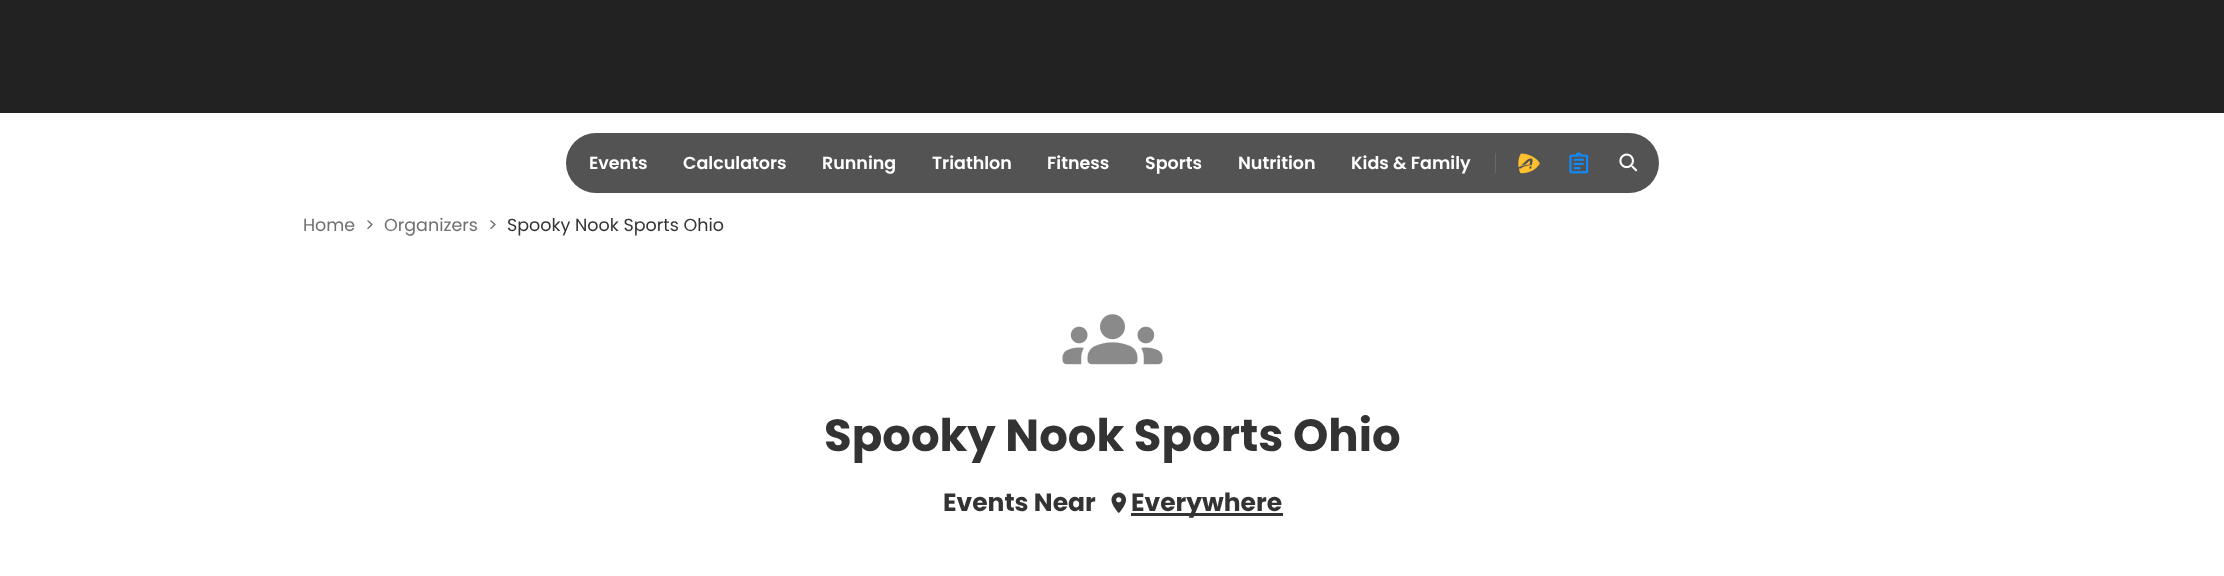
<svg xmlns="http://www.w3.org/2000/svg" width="2224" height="576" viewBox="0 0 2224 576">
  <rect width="100%" height="100%" fill="#fff"/>
  <path d="M0 0h2224v113H0z" fill="#222"/>
  <rect x="566" y="133" width="1093" height="60" rx="30" fill="#535353"/>
  <path d="M1495 153h1v20H1495z" fill="#686868"/>
  <image x="1518" y="153" width="22" height="21" href="img/1.png"/>
  <image x="1569" y="152" width="20" height="22" href="img/2.png"/>
  <image x="1619" y="153" width="19" height="19" href="img/3.png"/>
  <image x="1062" y="314" width="101" height="51" href="img/4.png"/>
  <image x="1111" y="492" width="15" height="21" href="img/5.png"/>
  <path d="M1131 513h152v3H1131z" fill="#333"/>
  <g font-family="Poppins" font-size="17.5" font-weight="600" fill="#fff">
    <text x="589" y="169">Events</text>
    <text x="683" y="169">Calculators</text>
    <text x="822" y="169">Running</text>
    <text x="932" y="169">Triathlon</text>
    <text x="1047" y="169">Fitness</text>
    <text x="1145" y="169">Sports</text>
    <text x="1238" y="169">Nutrition</text>
    <text x="1351" y="169">Kids &amp; Family</text>
  </g>
  <g font-family="Poppins" font-size="17.5" fill="#707070">
    <text x="303" y="231">Home</text>
    <text x="365" y="231">&gt;</text>
    <text x="384" y="231">Organizers</text>
    <text x="488" y="231">&gt;</text>
  </g>
  <text x="507" y="231" font-family="Poppins" font-size="17.5" fill="#333">Spooky Nook Sports Ohio</text>
  <text x="824" y="451" font-family="Poppins" font-size="45" font-weight="bold" fill="#333">Spooky Nook Sports Ohio</text>
  <g font-family="Poppins" font-size="25" font-weight="bold" fill="#333">
    <text x="943" y="511">Events Near</text>
    <text x="1131" y="511">Everywhere</text>
  </g>
</svg>
